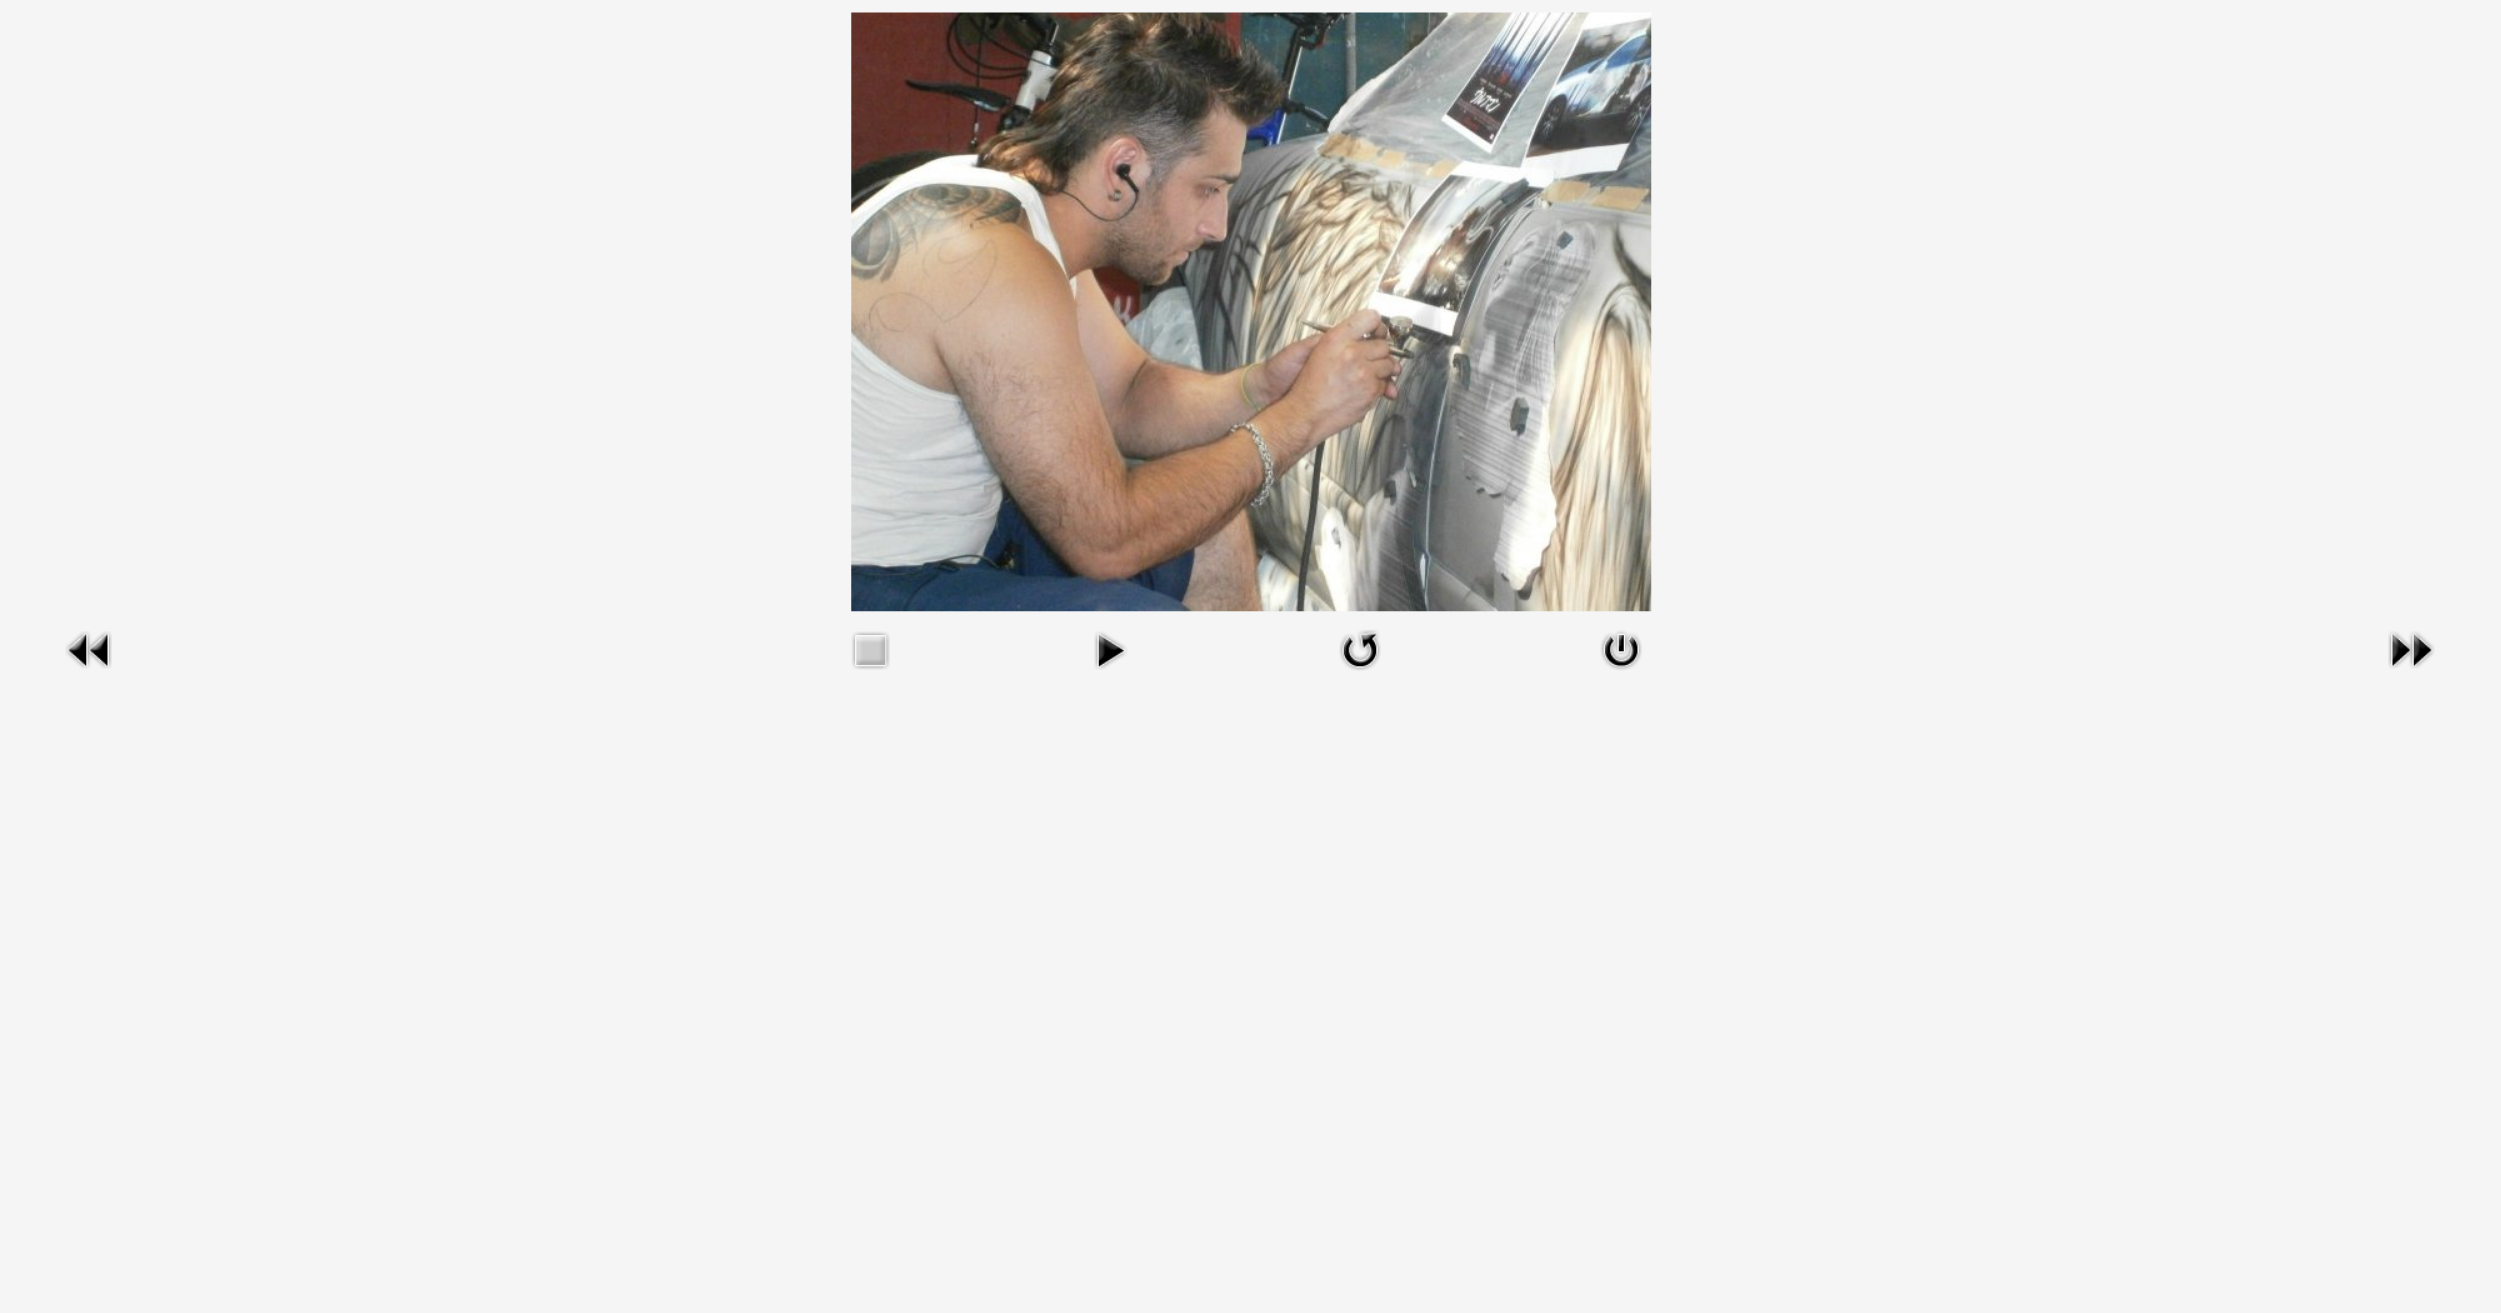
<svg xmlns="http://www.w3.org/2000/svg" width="2501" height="1313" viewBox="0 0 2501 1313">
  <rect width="100%" height="100%" fill="#f5f5f5"/>
  <image x="851" y="12" width="801" height="600" href="img/1.png"/>
  <image x="65" y="631" width="47" height="38" href="img/2.png"/>
  <image x="851" y="631" width="39" height="39" href="img/3.png"/>
  <image x="1094" y="631" width="34" height="39" href="img/4.png"/>
  <image x="1339" y="629" width="42" height="42" href="img/5.png"/>
  <image x="1600" y="630" width="42" height="41" href="img/6.png"/>
  <image x="2388" y="631" width="47" height="38" href="img/7.png"/>
</svg>
